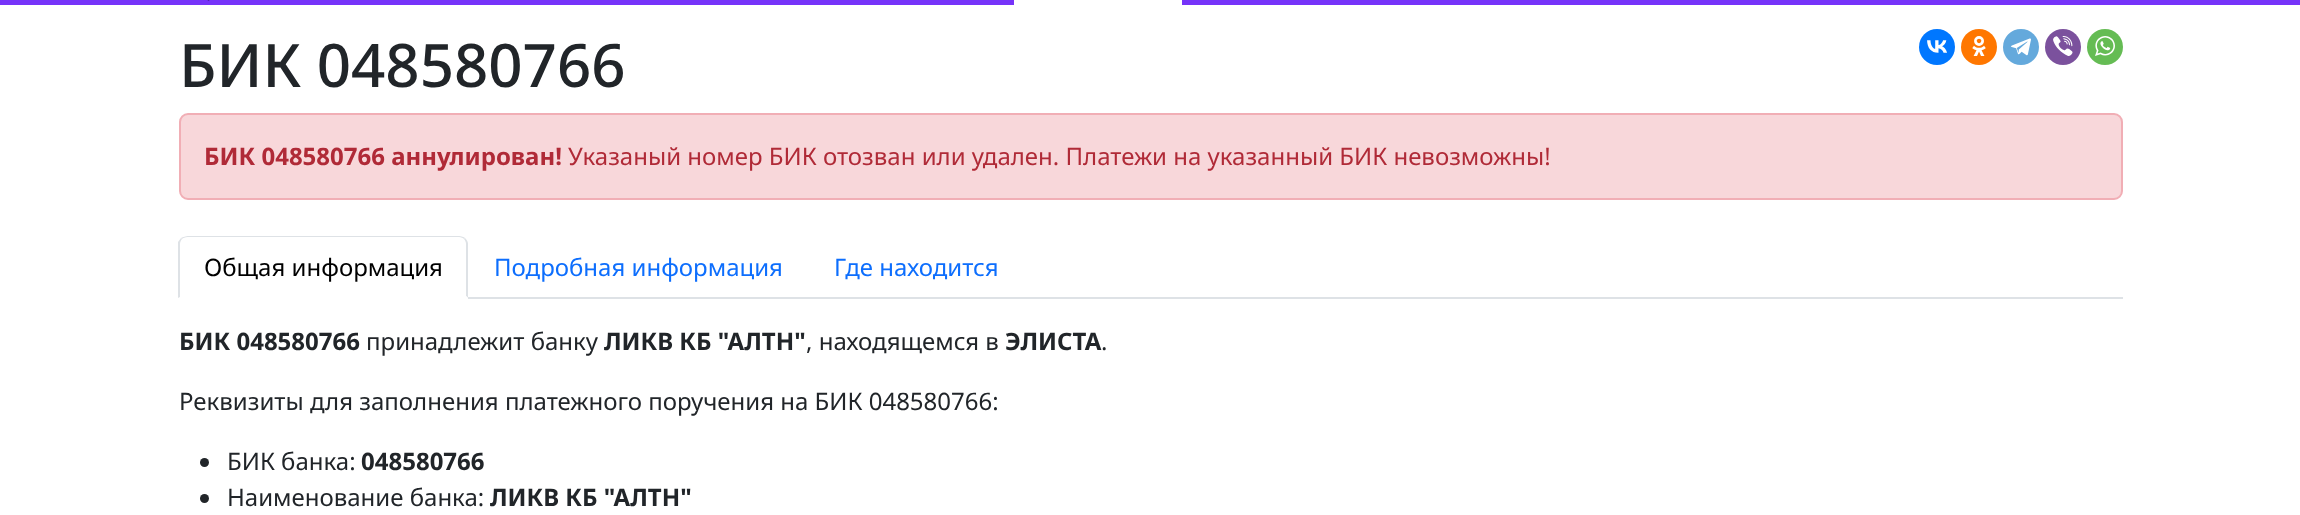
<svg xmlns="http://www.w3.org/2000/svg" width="2300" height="515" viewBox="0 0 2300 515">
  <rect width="100%" height="100%" fill="#fff"/>
  <path d="M0 0h2300v5H0z" fill="#7633f9"/>
  <image x="207" y="0" width="3" height="1" href="img/1.png"/>
  <path d="M1014 0h168v5H1014z" fill="#fff"/>
  <circle cx="1937" cy="47" r="18" fill="#07f"/>
  <image x="1927" y="40" width="20" height="13" href="img/2.png"/>
  <circle cx="1979" cy="47" r="18" fill="#f70"/>
  <image x="1972" y="36" width="14" height="20" href="img/3.png"/>
  <circle cx="2021" cy="47" r="18" fill="#64a9dc"/>
  <image x="2011" y="38" width="20" height="18" href="img/4.png"/>
  <circle cx="2063" cy="47" r="18" fill="#7b519d"/>
  <image x="2053" y="36" width="20" height="20" href="img/5.png"/>
  <circle cx="2105" cy="47" r="18" fill="#65bc54"/>
  <image x="2095" y="36" width="20" height="20" href="img/6.png"/>
  <rect x="180" y="114" width="1942" height="85" rx="8" fill="#f8d7da" stroke="#f1aeb5" stroke-width="2"/>
  <path d="M468 297h1655v2H468z" fill="#dee2e6"/>
  <path d="M188 236C186 236 183 237 181 238L182 239C183 238 185 237 188 237H459C461 237 463 238 464 239L465 238C464 237 461 236 459 236Z" fill="#dee2e6"/>
  <path d="M465 238C467 240 468 242 468 244V298L466 296V244C466 242 465 240 464 239Z" fill="#dee2e6"/>
  <path d="M468 298H179L180 297H466V296Z" fill="#fff"/>
  <path d="M178 242L181 238L182 239C181 240 180 242 180 244V297L178 298Z" fill="#dee2e6"/>
  <circle cx="204.5" cy="462.5" r="4.5" fill="#212529"/>
  <circle cx="204.5" cy="498.5" r="4.5" fill="#212529"/>
  <text x="179" y="87" font-family="Noto Sans" font-size="60" font-weight="500" fill="#212529">БИК 048580766</text>
  <text x="204" y="165" font-family="Noto Sans" font-size="24" font-weight="bold" fill="#b02a37">БИК 048580766 аннулирован!</text>
  <text x="568" y="165" font-family="Noto Sans" font-size="24" fill="#b02a37">Указаный номер БИК отозван или удален. Платежи на указанный БИК невозможны!</text>
  <text x="204" y="276" font-family="Noto Sans" font-size="24" fill="#000">Общая информация</text>
  <g font-family="Noto Sans" font-size="24" fill="#0d6efd">
    <text x="494" y="276">Подробная информация</text>
    <text x="834" y="276">Где находится</text>
  </g>
  <text x="179" y="350" font-family="Noto Sans" font-size="24" font-weight="bold" fill="#212529">БИК 048580766</text>
  <text x="366" y="350" font-family="Noto Sans" font-size="24" fill="#212529">принадлежит банку</text>
  <text x="604" y="350" font-family="Noto Sans" font-size="24" font-weight="bold" fill="#212529">ЛИКВ КБ "АЛТН"</text>
  <text x="806" y="350" font-family="Noto Sans" font-size="24" fill="#212529">, находящемся в</text>
  <text x="1005" y="350" font-family="Noto Sans" font-size="24" font-weight="bold" fill="#212529">ЭЛИСТА</text>
  <g font-family="Noto Sans" font-size="24" fill="#212529">
    <text x="1101" y="350">.</text>
    <text x="179" y="410">Реквизиты для заполнения платежного поручения на БИК 048580766:</text>
    <text x="227" y="470">БИК банка:</text>
  </g>
  <text x="361" y="470" font-family="Noto Sans" font-size="24" font-weight="bold" fill="#212529">048580766</text>
  <text x="227" y="506" font-family="Noto Sans" font-size="24" fill="#212529">Наименование банка:</text>
  <text x="490" y="506" font-family="Noto Sans" font-size="24" font-weight="bold" fill="#212529">ЛИКВ КБ "АЛТН"</text>
</svg>
